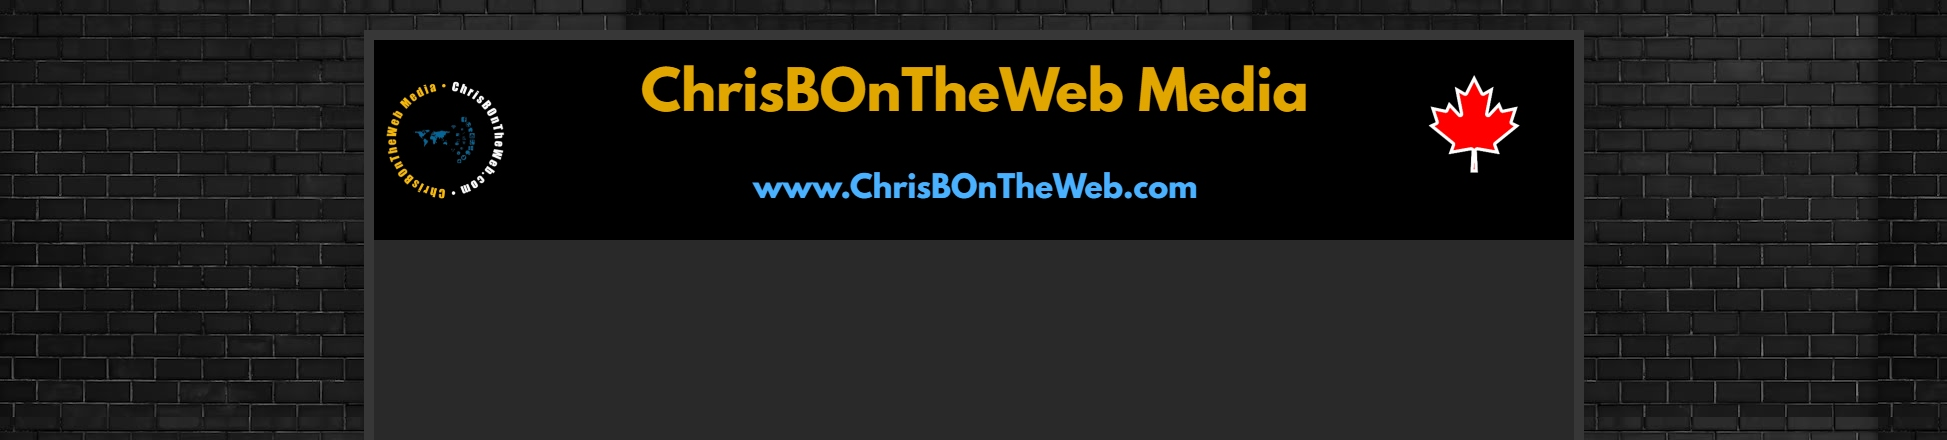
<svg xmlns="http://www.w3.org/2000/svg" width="1947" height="440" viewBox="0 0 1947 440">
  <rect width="100%" height="100%" fill="#fff"/>
  <image x="0" y="0" width="1947" height="440" href="img/1.png"/>
  <path d="M364 30h1220v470H364z" fill="#00000026" filter="blur(20px)"/>
  <path d="M364 30h1220v410H364z" fill="#373737"/>
  <path d="M374 240h1200v200H374z" fill="#292929"/>
  <image x="374" y="40" width="1200" height="200" href="img/2.png"/>
</svg>
